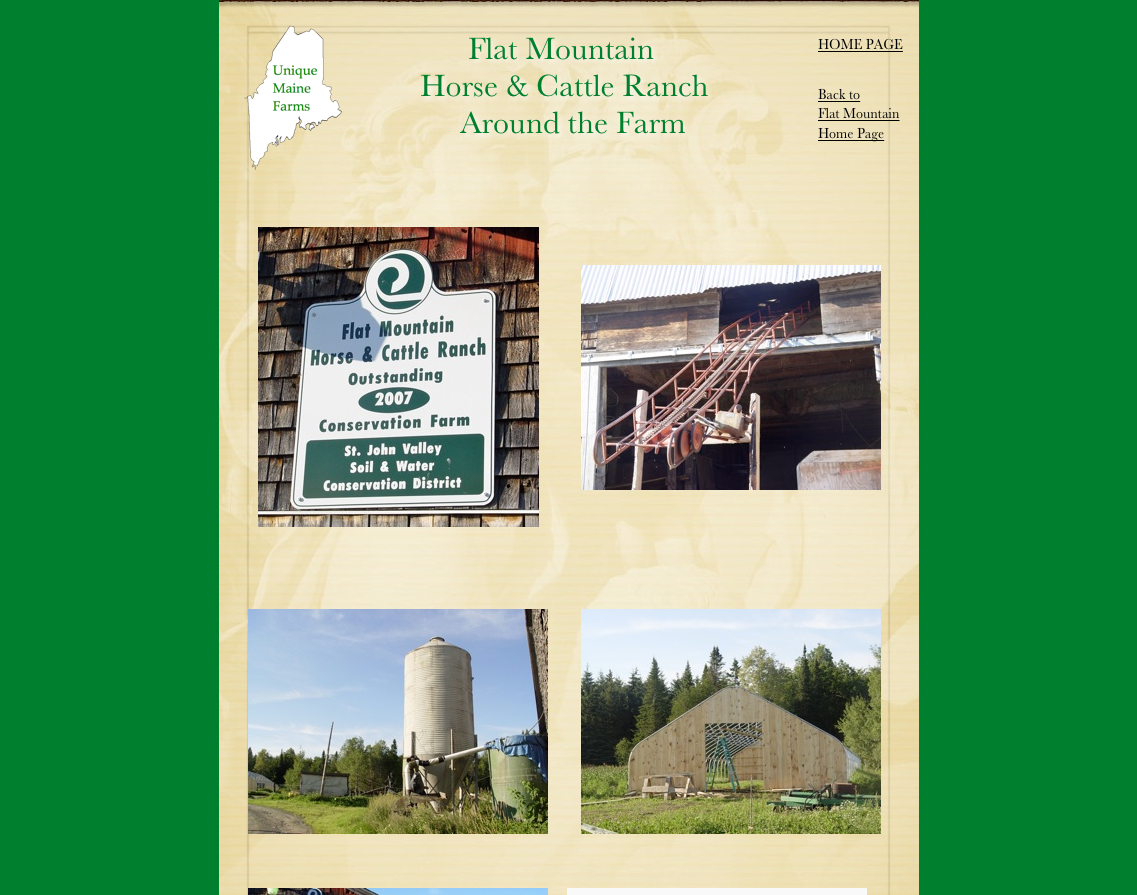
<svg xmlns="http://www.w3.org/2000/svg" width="1137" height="895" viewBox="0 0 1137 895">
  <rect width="100%" height="100%" fill="#00802e"/>
  <image x="219" y="0" width="700" height="895" href="img/1.png"/>
  <image x="244" y="25" width="98" height="145" href="img/2.png"/>
  <image x="421" y="37" width="291" height="102" href="img/3.png"/>
  <image x="818" y="38" width="85" height="14" href="img/4.png"/>
  <image x="818" y="88" width="82" height="54" href="img/5.png"/>
  <image x="258" y="227" width="281" height="300" href="img/6.png"/>
  <image x="581" y="265" width="300" height="225" href="img/7.png"/>
  <image x="248" y="609" width="300" height="225" href="img/8.png"/>
  <image x="581" y="609" width="300" height="225" href="img/9.png"/>
  <image x="248" y="888" width="300" height="7" href="img/10.png"/>
  <path d="M567 888h300v7H567z" fill="#f9f9f9"/>
</svg>
